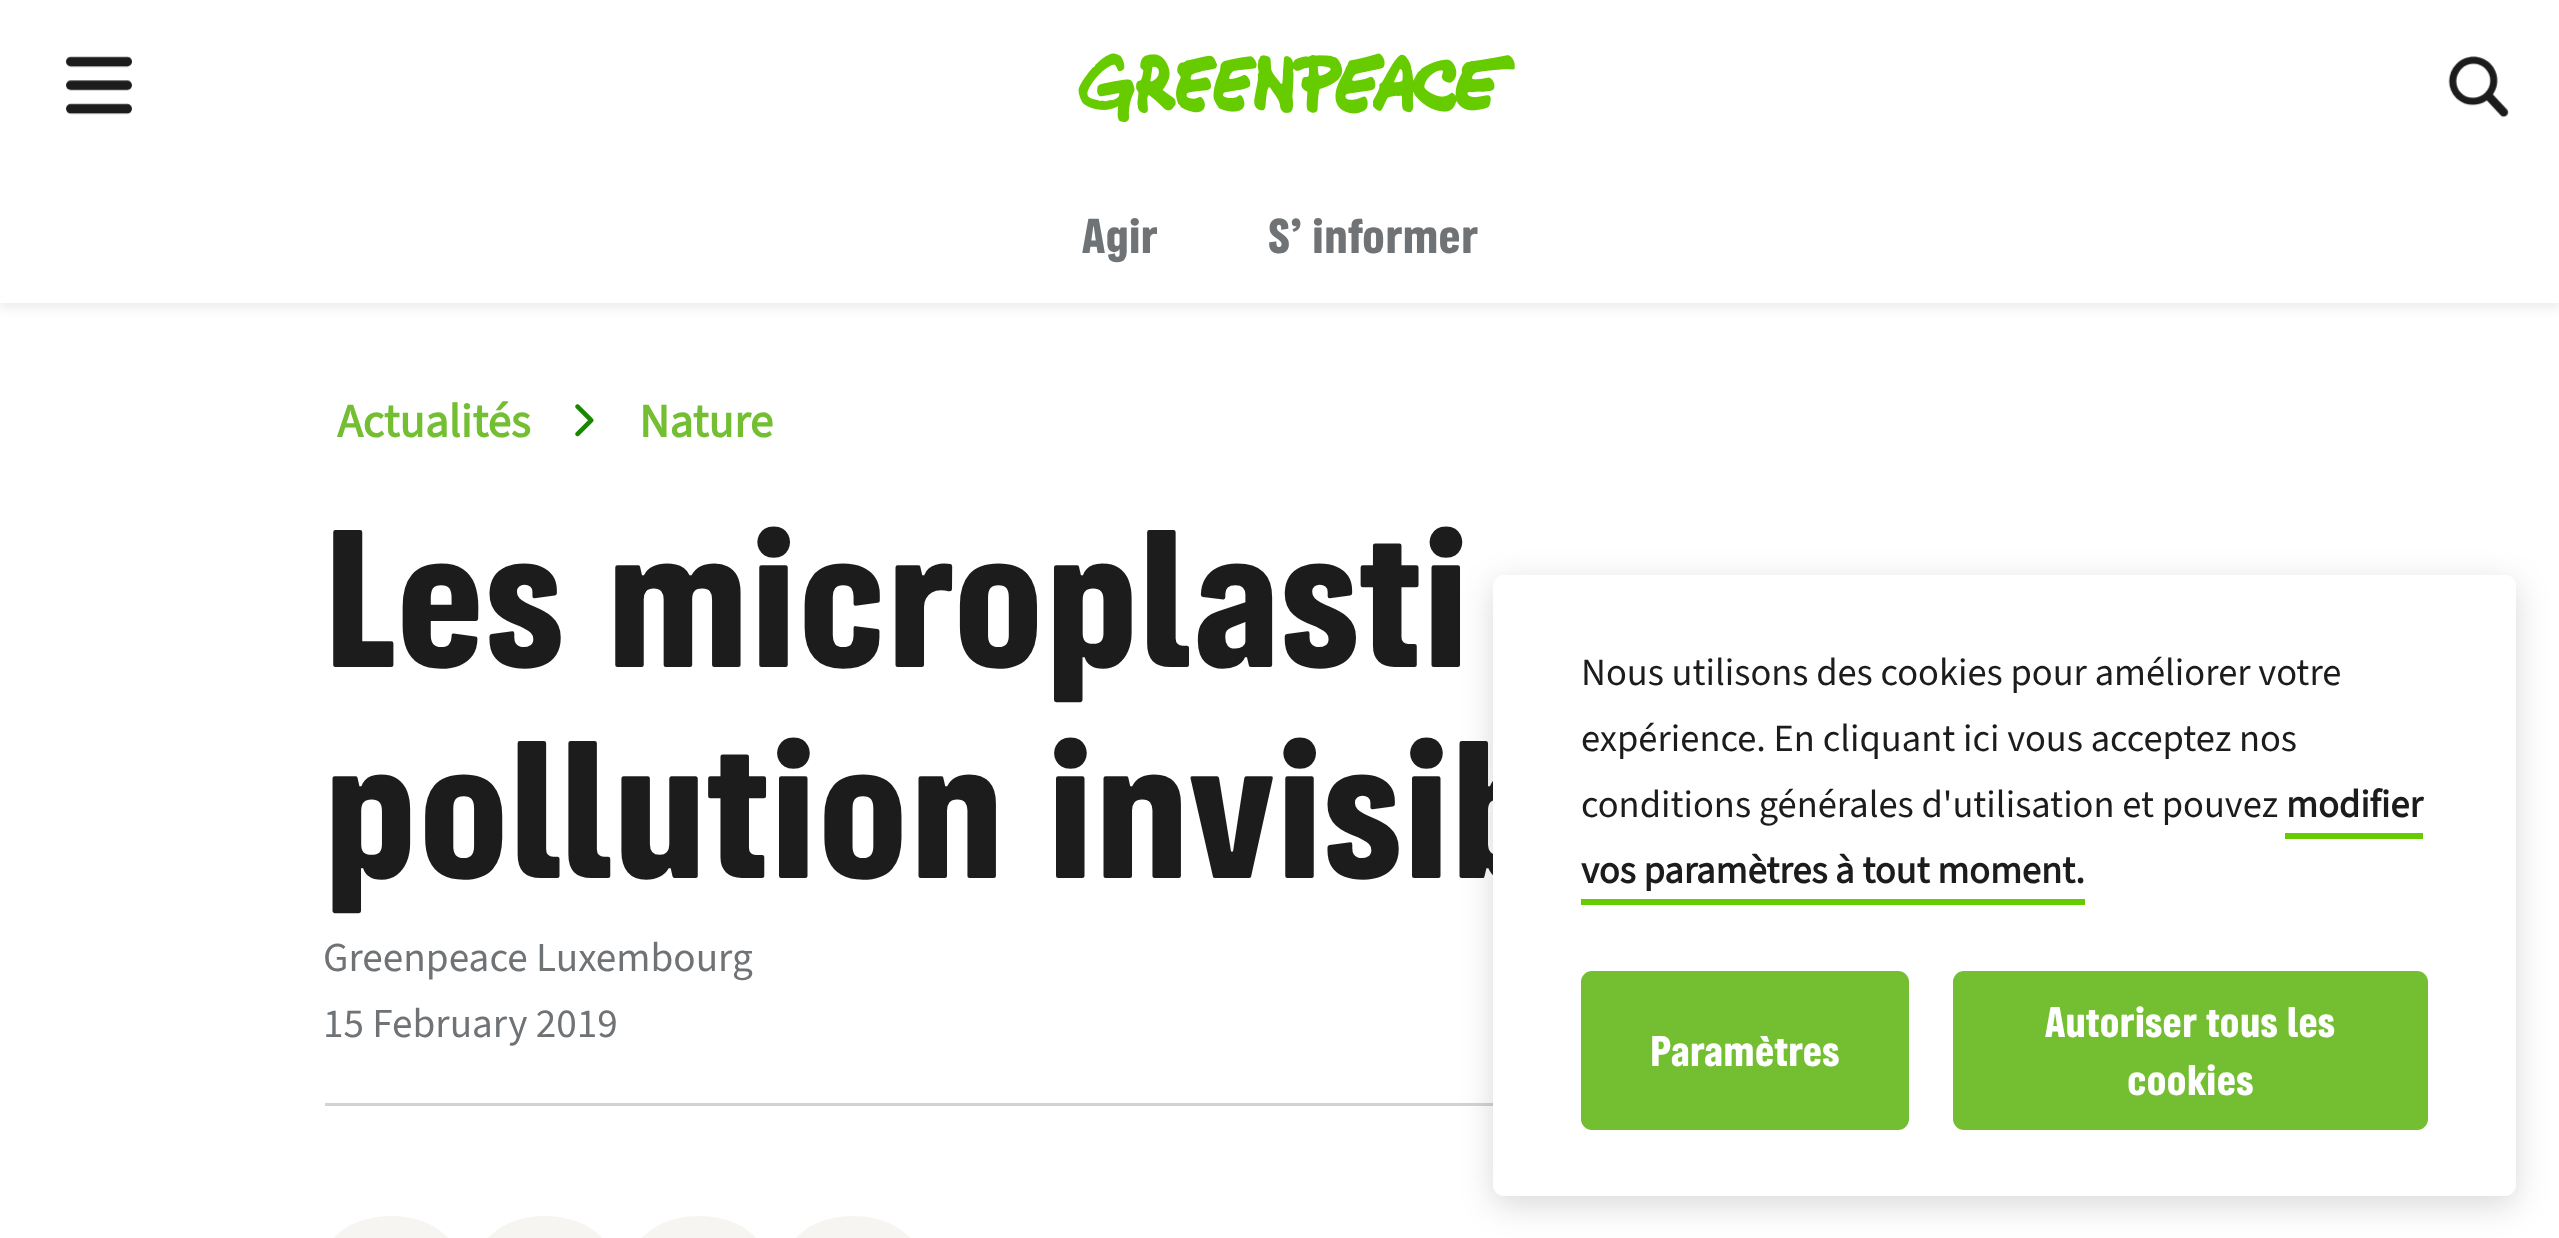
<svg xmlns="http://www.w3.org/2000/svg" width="2559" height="1238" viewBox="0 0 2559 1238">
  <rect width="100%" height="100%" fill="#fff"/>
  <path d="M0 6h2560v302H0z" fill="#00000014" filter="blur(5.5px)"/>
  <path d="M0 0h2559v303H0z" fill="#fff"/>
  <image x="66" y="56" width="66" height="59" href="img/1.png"/>
  <image x="1078" y="53" width="437" height="70" href="img/2.png"/>
  <image x="2448" y="56" width="61" height="62" href="img/3.png"/>
  <image x="575" y="404" width="19" height="33" href="img/4.png"/>
  <path d="M325 1103h1168v3H325z" fill="#d2d3d4"/>
  <rect x="325" y="1216" width="132" height="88" rx="66" fill="#f7f5f1"/>
  <rect x="479" y="1216" width="132" height="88" rx="66" fill="#f7f5f1"/>
  <rect x="633" y="1216" width="132" height="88" rx="66" fill="#f7f5f1"/>
  <rect x="787" y="1216" width="132" height="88" rx="66" fill="#f7f5f1"/>
  <rect x="1493" y="583" width="1023" height="622" rx="11" fill="#00000026" filter="blur(16.5px)"/>
  <g font-family="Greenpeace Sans" font-size="44" font-weight="bold" fill="#6f7376">
    <text x="1082" y="253">Agir</text>
    <text x="1268" y="253">S’ informer</text>
  </g>
  <g font-family="'Source Sans 3'" font-size="47" font-weight="bold" fill="#73be31">
    <text x="337" y="437">Actualités</text>
    <text x="639" y="437">Nature</text>
  </g>
  <g font-family="Greenpeace Sans" font-size="176" font-weight="bold" fill="#1c1c1c">
    <text x="323" y="667">Les microplasti</text>
    <text x="323" y="878">pollution invisib</text>
  </g>
  <g font-family="'Source Sans 3'" font-size="41.25" fill="#6f7376">
    <text x="323" y="971">Greenpeace Luxembourg</text>
    <text x="323" y="1037">15 February 2019</text>
  </g>
  <rect x="1493" y="575" width="1023" height="621" rx="11" fill="#fff"/>
  <g font-family="'Source Sans 3'" font-size="38.5" fill="#1c1c1c">
    <text x="1581" y="685">Nous utilisons des cookies pour améliorer votre</text>
    <text x="1581" y="751">expérience. En cliquant ici vous acceptez nos</text>
    <text x="1581" y="817">conditions générales d'utilisation et pouvez</text>
  </g>
  <text x="2286" y="817" font-family="'Source Sans 3'" font-size="38.5" font-weight="bold" fill="#1c1c1c">modifier</text>
  <path d="M2285 833h138v6H2285z" fill="#6c0"/>
  <text x="1581" y="883" font-family="'Source Sans 3'" font-size="38.5" font-weight="bold" fill="#1c1c1c">vos paramètres à tout moment.</text>
  <path d="M1581 899h504v6H1581z" fill="#6c0"/>
  <rect x="1582.5" y="972.5" width="325" height="156" rx="9.5" fill="#73be31" stroke="#73be31" stroke-width="3"/>
  <text x="1650" y="1066" font-family="Greenpeace Sans" font-size="38.5" font-weight="bold" fill="#fff">Paramètres</text>
  <rect x="1953" y="971" width="475" height="159" rx="11" fill="#73be31"/>
  <g font-family="Greenpeace Sans" font-size="38.5" font-weight="bold" fill="#fff">
    <text x="2045" y="1037">Autoriser tous les</text>
    <text x="2127" y="1095">cookies</text>
  </g>
</svg>
